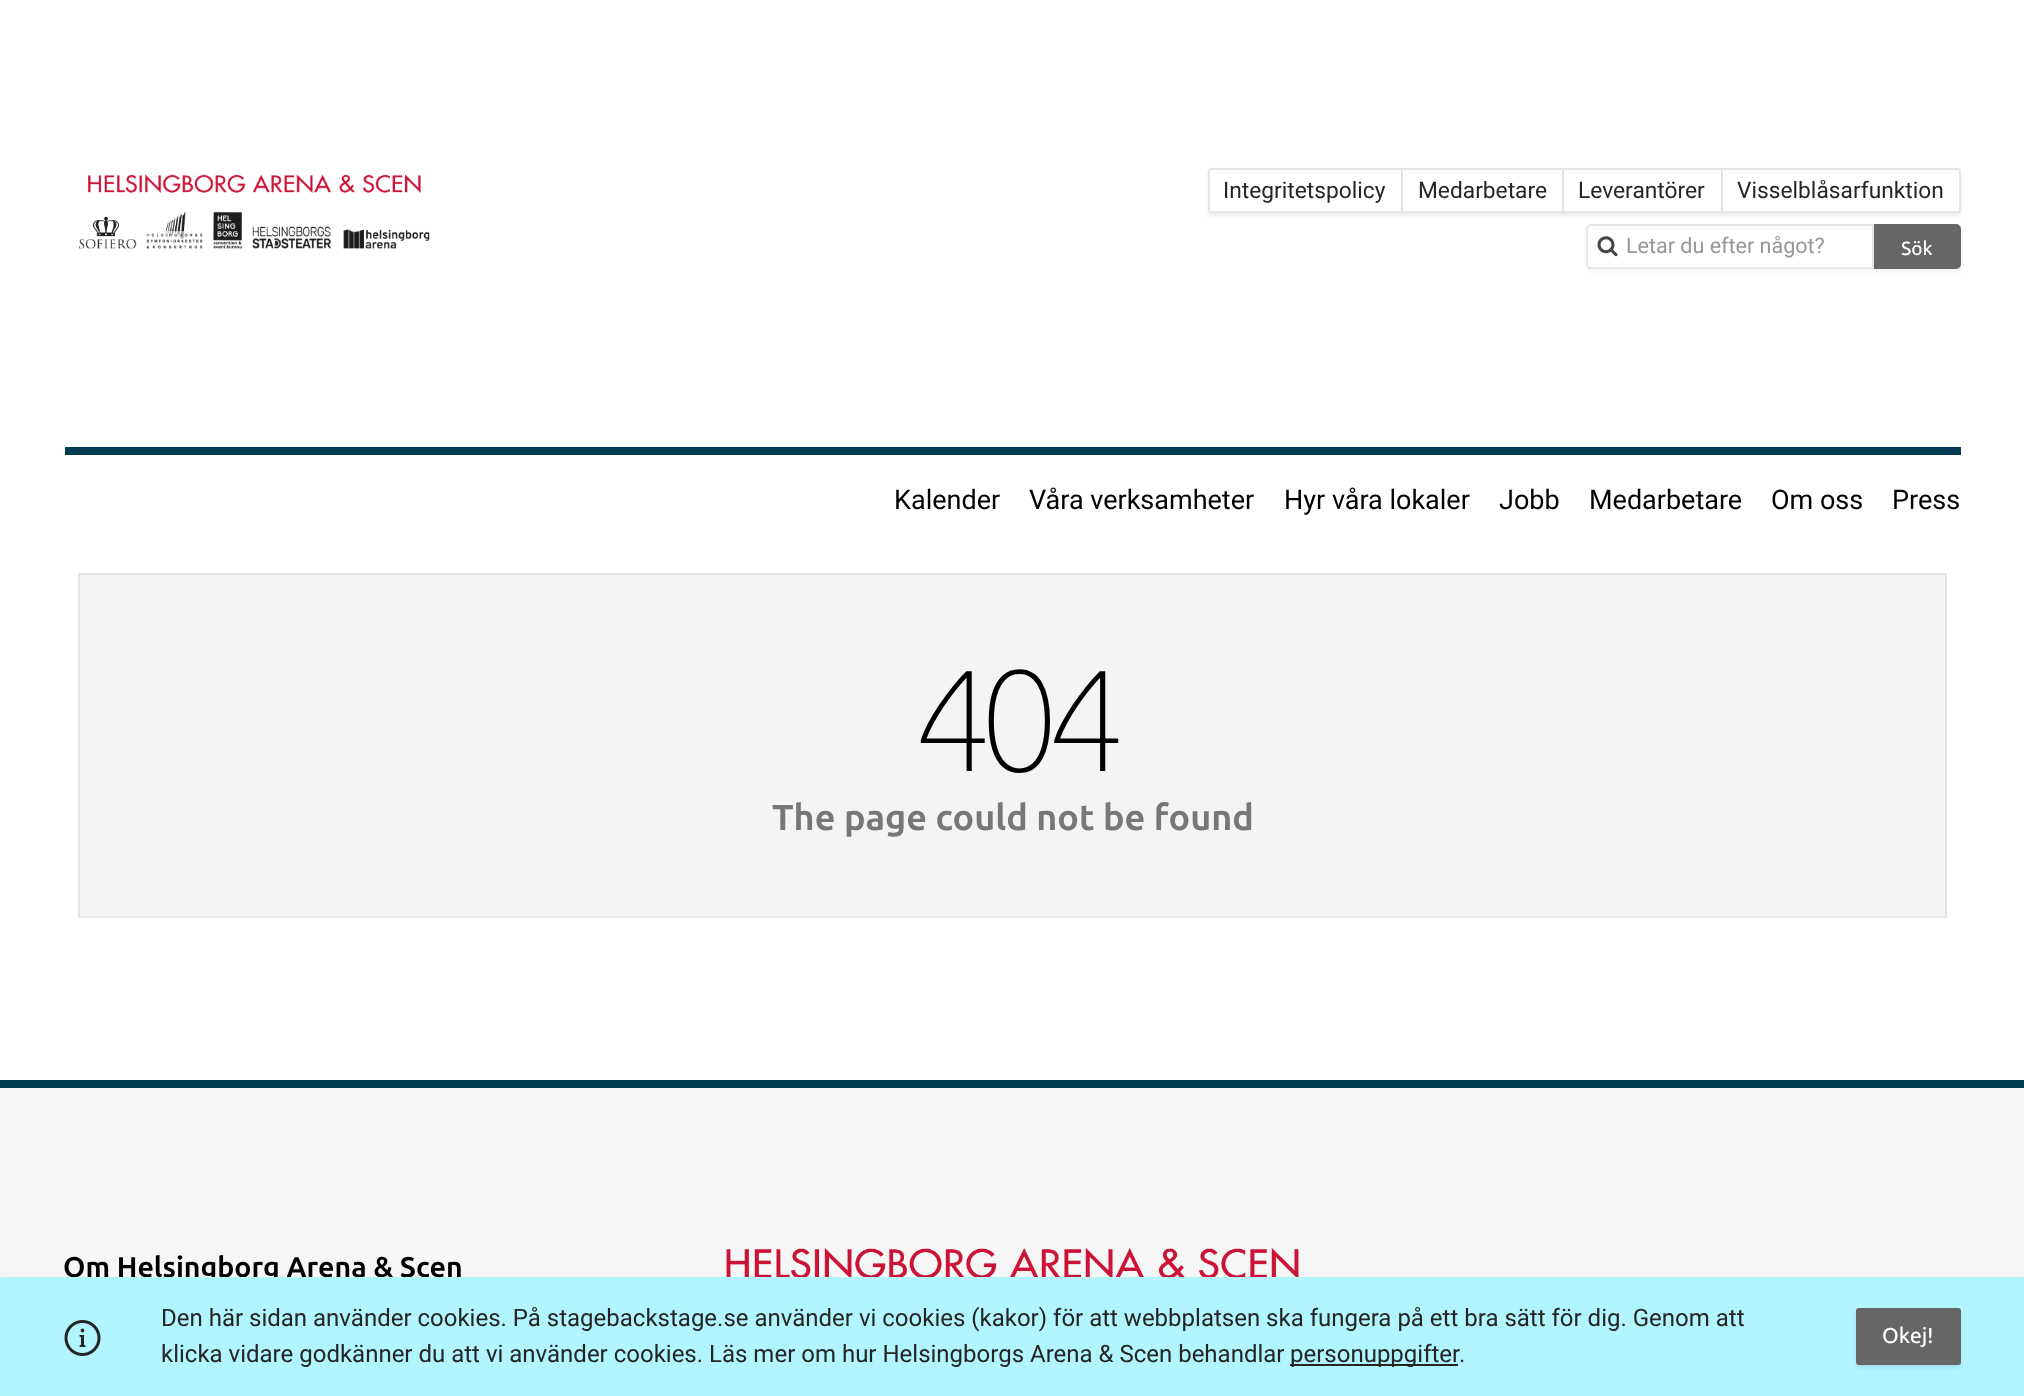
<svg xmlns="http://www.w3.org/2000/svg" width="2024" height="1396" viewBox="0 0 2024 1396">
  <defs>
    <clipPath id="clip1"><path d="M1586 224h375v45H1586z"/></clipPath>
  </defs>
  <rect width="100%" height="100%" fill="#fff"/>
  <image x="79" y="174" width="351" height="75" href="img/1.png"/>
  <rect x="1208" y="171" width="753" height="45" rx="3" fill="#00000014" filter="blur(2px)"/>
  <rect x="1209" y="169" width="751" height="43" rx="2" fill="#fff" stroke="#e5e5e5" stroke-width="2"/>
  <path d="M1401 170h2v42H1401z" fill="#e5e5e5"/>
  <path d="M1562 170h2v42H1562z" fill="#e5e5e5"/>
  <path d="M1721 170h2v42H1721z" fill="#e5e5e5"/>
  <path d="M1586 227h375v45H1586z" fill="#f6f5f2" filter="blur(1.5px)"/>
  <g clip-path="url(#clip1)">
    <rect x="1874" y="227" width="87" height="45" rx="5" fill="#00000014" filter="blur(2px)"/>
  </g>
  <path d="M1591 225H1873V268H1591C1589 268 1587 266 1587 264V229C1587 227 1589 225 1591 225Z" fill="#fff" stroke="#e5e5e5" stroke-width="2"/>
  <image x="1597" y="236" width="21" height="21" href="img/2.png"/>
  <path d="M1875.5 225.5H1956C1958 225.5 1959.5 227 1959.5 229V264C1959.5 266 1958 267.5 1956 267.5H1875.5Z" fill="#666" stroke="#666" stroke-width="3"/>
  <path d="M65 447h1896v8H65z" fill="#003d52"/>
  <path d="M79 574h1867v343H79z" fill="#f4f4f4" stroke="#e5e5e5" stroke-width="2"/>
  <path d="M0 1088h2024v308H0z" fill="#f6f6f6"/>
  <path d="M0 1080h2024v8H0z" fill="#003d52"/>
  <image x="726" y="1248" width="573" height="29" href="img/3.png"/>
  <rect y="1280" width="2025" height="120" rx="3" fill="#00000014" filter="blur(2px)"/>
  <g font-family="Roboto" font-size="22.75" fill="#252525">
    <text x="1223" y="198">Integritetspolicy</text>
    <text x="1418" y="198">Medarbetare</text>
    <text x="1578" y="198">Leverantörer</text>
    <text x="1737" y="198">Visselblåsarfunktion</text>
  </g>
  <text x="1626" y="253" font-family="Roboto" font-size="21.5" fill="#979797">Letar du efter något?</text>
  <text x="1901" y="255" font-family="Ubuntu" font-size="19" font-weight="500" fill="#fff">Sök</text>
  <g font-family="Roboto" font-size="27" fill="#000">
    <text x="894" y="509">Kalender</text>
    <text x="1029" y="509">Våra verksamheter</text>
    <text x="1284" y="509">Hyr våra lokaler</text>
    <text x="1499" y="509">Jobb</text>
    <text x="1589" y="509">Medarbetare</text>
    <text x="1771" y="509">Om oss</text>
    <text x="1892" y="509">Press</text>
  </g>
  <text x="912" y="771" font-family="Ubuntu" font-size="144" font-weight="100" letter-spacing="-14.5" fill="#000">404</text>
  <text x="772" y="830" font-family="Ubuntu" font-size="36" font-weight="bold" fill="#777">The page could not be found</text>
  <text x="63" y="1277" font-family="Ubuntu" font-size="28.5" font-weight="bold" fill="#000">Om Helsingborg Arena &amp; Scen</text>
  <rect y="1277" width="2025" height="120" rx="3" fill="#b1f5ff"/>
  <image x="64" y="1320" width="37" height="36" href="img/4.png"/>
  <g font-family="Roboto" font-size="24" fill="#252525">
    <text x="161" y="1326">Den här sidan använder cookies. På stagebackstage.se använder vi cookies (kakor) för att webbplatsen ska fungera på ett bra sätt för dig. Genom att</text>
    <text x="161" y="1362">klicka vidare godkänner du att vi använder cookies. Läs mer om hur Helsingborgs Arena &amp; Scen behandlar</text>
  </g>
  <path d="M1290 1364h168v2H1290z" fill="#252525"/>
  <g font-family="Roboto" font-size="24" fill="#252525">
    <text x="1290" y="1362">personuppgifter</text>
    <text x="1459" y="1362">.</text>
  </g>
  <rect x="1856" y="1311" width="105" height="57" rx="3" fill="#00000014" filter="blur(2px)"/>
  <rect x="1857.5" y="1309.5" width="102" height="54" rx="1.5" fill="#666" stroke="#666" stroke-width="3"/>
  <text x="1882" y="1343" font-family="Ubuntu" font-size="21.5" font-weight="500" fill="#fff">Okej!</text>
</svg>
